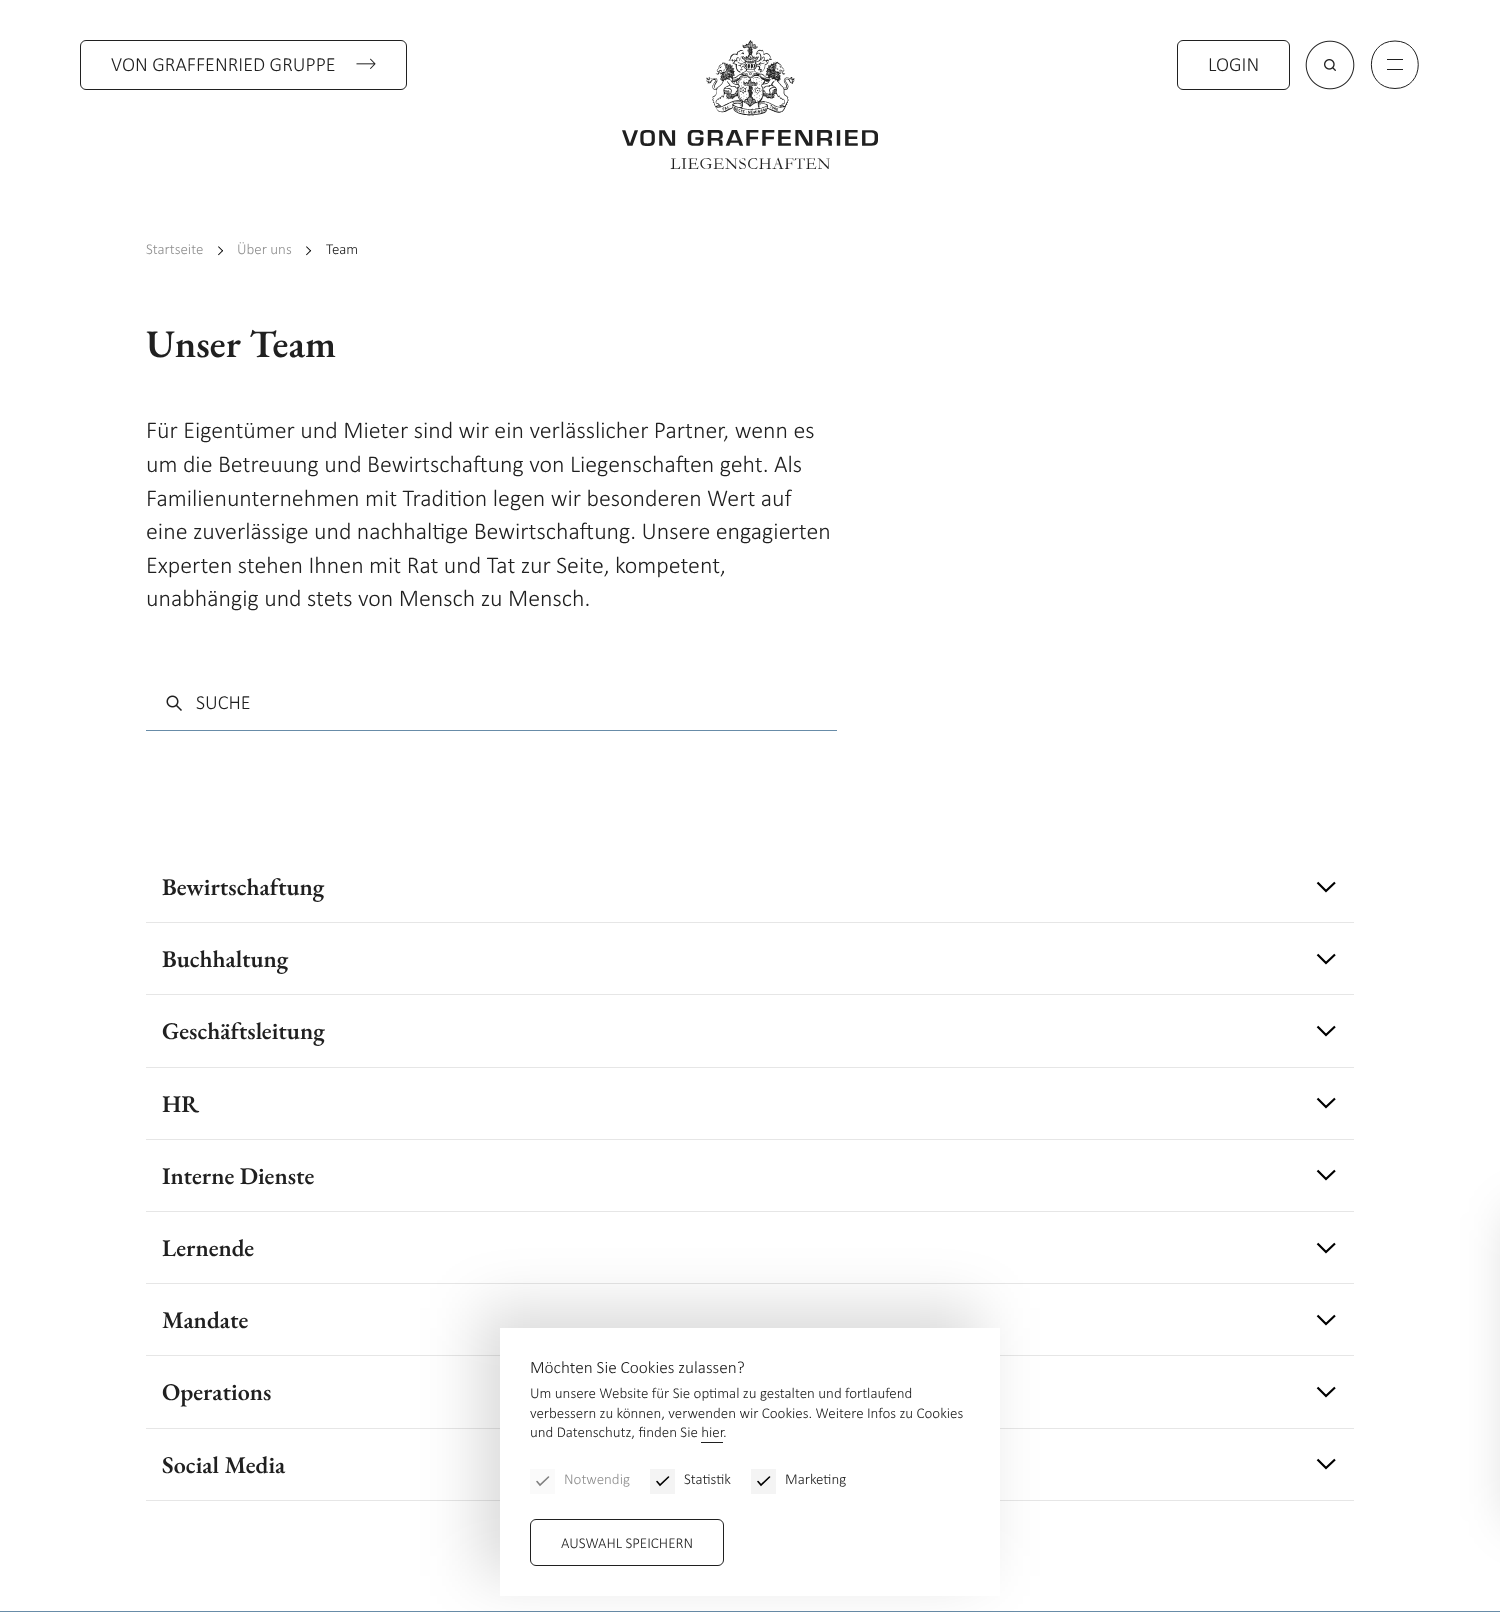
<svg xmlns="http://www.w3.org/2000/svg" width="1500" height="1612" viewBox="0 0 1500 1612">
  <rect width="100%" height="100%" fill="#fff"/>
  <rect x="80.5" y="40.5" width="326" height="49" rx="5.5" fill="none" stroke="#202020"/>
  <image x="356" y="58" width="20" height="11" href="img/1.png"/>
  <image x="622" y="40" width="256" height="129" href="img/2.png"/>
  <rect x="1177.5" y="40.5" width="112" height="49" rx="5.5" fill="none" stroke="#202020"/>
  <image x="1305" y="40" width="50" height="50" href="img/3.png"/>
  <path d="M1395 88.5C1426 88.5 1426 41 1395 41C1363.5 41 1363.5 88.5 1395 88.5Z" fill="none" stroke="#202020"/>
  <path d="M1387 59h16v1H1387z" fill="#202020"/>
  <path d="M1387 69h16v1H1387z" fill="#202020"/>
  <image x="218" y="246" width="5" height="10" href="img/4.png"/>
  <image x="306" y="246" width="6" height="10" href="img/5.png"/>
  <image x="166" y="695" width="16" height="16" href="img/6.png"/>
  <path d="M146 730h691v1H146z" fill="#688ca8"/>
  <path d="M146 922h1208v1H146z" fill="#e6e6e6"/>
  <path d="M1335 882.5L1326 891L1317.5 882.5" fill="none" stroke="#000" stroke-width="2.2"/>
  <path d="M146 994h1208v1H146z" fill="#e6e6e6"/>
  <path d="M1335 954.5L1326 963L1317.5 954.5" fill="none" stroke="#000" stroke-width="2.2"/>
  <path d="M146 1067h1208v1H146z" fill="#e6e6e6"/>
  <path d="M1335 1026.5L1326 1035L1317.5 1026.5" fill="none" stroke="#000" stroke-width="2.2"/>
  <path d="M146 1139h1208v1H146z" fill="#e6e6e6"/>
  <path d="M1335 1098.5L1326 1107L1317.5 1098.5" fill="none" stroke="#000" stroke-width="2.2"/>
  <path d="M146 1211h1208v1H146z" fill="#e6e6e6"/>
  <path d="M1335 1170.5L1326 1179L1317.5 1170.5" fill="none" stroke="#000" stroke-width="2.2"/>
  <path d="M146 1283h1208v1H146z" fill="#e6e6e6"/>
  <path d="M1335 1243.5L1326 1252L1317.5 1243.5" fill="none" stroke="#000" stroke-width="2.2"/>
  <path d="M146 1355h1208v1H146z" fill="#e6e6e6"/>
  <path d="M1335 1315.5L1326 1324L1317.5 1315.5" fill="none" stroke="#000" stroke-width="2.2"/>
  <path d="M146 1428h1208v1H146z" fill="#e6e6e6"/>
  <path d="M1335 1387.5L1326 1396L1317.5 1387.5" fill="none" stroke="#000" stroke-width="2.2"/>
  <path d="M146 1500h1208v1H146z" fill="#e6e6e6"/>
  <path d="M1335 1459.5L1326 1468L1317.5 1459.5" fill="none" stroke="#000" stroke-width="2.2"/>
  <rect x="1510" y="1212" width="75" height="310" rx="10" fill="#00000026" filter="blur(25px)"/>
  <path d="M0 1611h1500v1H0z" fill="#688ca8"/>
  <path d="M480 1308h500v268H480z" fill="#00000026" filter="blur(30px)"/>
  <path d="M500 1328h500v268H500z" fill="#fff"/>
  <path d="M701 1442h22v1H701z" fill="#202020"/>
  <path d="M530 1469h25v25H530z" fill="#fafafa"/>
  <path d="M537 1481.5L540 1485L548.5 1477" fill="none" stroke="#808080" stroke-width="1.6" stroke-linecap="round"/>
  <path d="M650 1469h25v25H650z" fill="#f4f4f4"/>
  <path d="M657 1481.5L660 1485L668.5 1477" fill="none" stroke="#000" stroke-width="1.6" stroke-linecap="round"/>
  <path d="M751 1469h25v25H751z" fill="#f4f4f4"/>
  <path d="M758 1481.5L761 1485L769.5 1477" fill="none" stroke="#000" stroke-width="1.6" stroke-linecap="round"/>
  <rect x="530.5" y="1519.5" width="193" height="46" rx="5.5" fill="none" stroke="#202020"/>
  <g font-family="Calibri" font-size="20" font-weight="300" fill="#202020">
    <text x="111" y="71">VON GRAFFENRIED GRUPPE</text>
    <text x="1208" y="71">LOGIN</text>
  </g>
  <g font-family="Calibri" font-size="15" font-weight="300" fill="#909090">
    <text x="146" y="254">Startseite</text>
    <text x="237" y="254">Über uns</text>
  </g>
  <text x="326" y="254" font-family="Calibri" font-size="15" font-weight="300" fill="#202020">Team</text>
  <text x="146" y="357" font-family="EB Garamond" font-size="39" font-weight="600" fill="#202020">Unser Team</text>
  <g font-family="Calibri" font-size="24" font-weight="300" fill="#202020">
    <text x="146" y="438">Für Eigentümer und Mieter sind wir ein verlässlicher Partner, wenn es</text>
    <text x="146" y="472">um die Betreuung und Bewirtschaftung von Liegenschaften geht. Als</text>
    <text x="146" y="506">Familienunternehmen mit Tradition legen wir besonderen Wert auf</text>
    <text x="146" y="539">eine zuverlässige und nachhaltige Bewirtschaftung. Unsere engagierten</text>
    <text x="146" y="573">Experten stehen Ihnen mit Rat und Tat zur Seite, kompetent,</text>
    <text x="146" y="606">unabhängig und stets von Mensch zu Mensch.</text>
  </g>
  <text x="196" y="709" font-family="Calibri" font-size="20" font-weight="300" fill="#202020">SUCHE</text>
  <g font-family="EB Garamond" font-size="24" font-weight="600" fill="#202020">
    <text x="162" y="895">Bewirtschaftung</text>
    <text x="162" y="967">Buchhaltung</text>
    <text x="162" y="1039">Geschäftsleitung</text>
    <text x="162" y="1112">HR</text>
    <text x="162" y="1184">Interne Dienste</text>
    <text x="162" y="1256">Lernende</text>
    <text x="162" y="1328">Mandate</text>
    <text x="162" y="1400">Operations</text>
    <text x="162" y="1473">Social Media</text>
  </g>
  <text x="530" y="1373" font-family="Calibri" font-size="17.25" font-weight="300" fill="#202020">Möchten Sie Cookies zulassen?</text>
  <g font-family="Calibri" font-size="15" font-weight="300" fill="#202020">
    <text x="530" y="1398">Um unsere Website für Sie optimal zu gestalten und fortlaufend</text>
    <text x="530" y="1418">verbessern zu können, verwenden wir Cookies. Weitere Infos zu Cookies</text>
    <text x="530" y="1437">und Datenschutz, finden Sie hier</text>
    <text x="723" y="1437">.</text>
  </g>
  <text x="564" y="1484" font-family="Calibri" font-size="15" font-weight="300" fill="#909090">Notwendig</text>
  <g font-family="Calibri" font-size="15" font-weight="300" fill="#202020">
    <text x="684" y="1484">Statistik</text>
    <text x="785" y="1484">Marketing</text>
    <text x="561" y="1548">AUSWAHL SPEICHERN</text>
  </g>
</svg>
